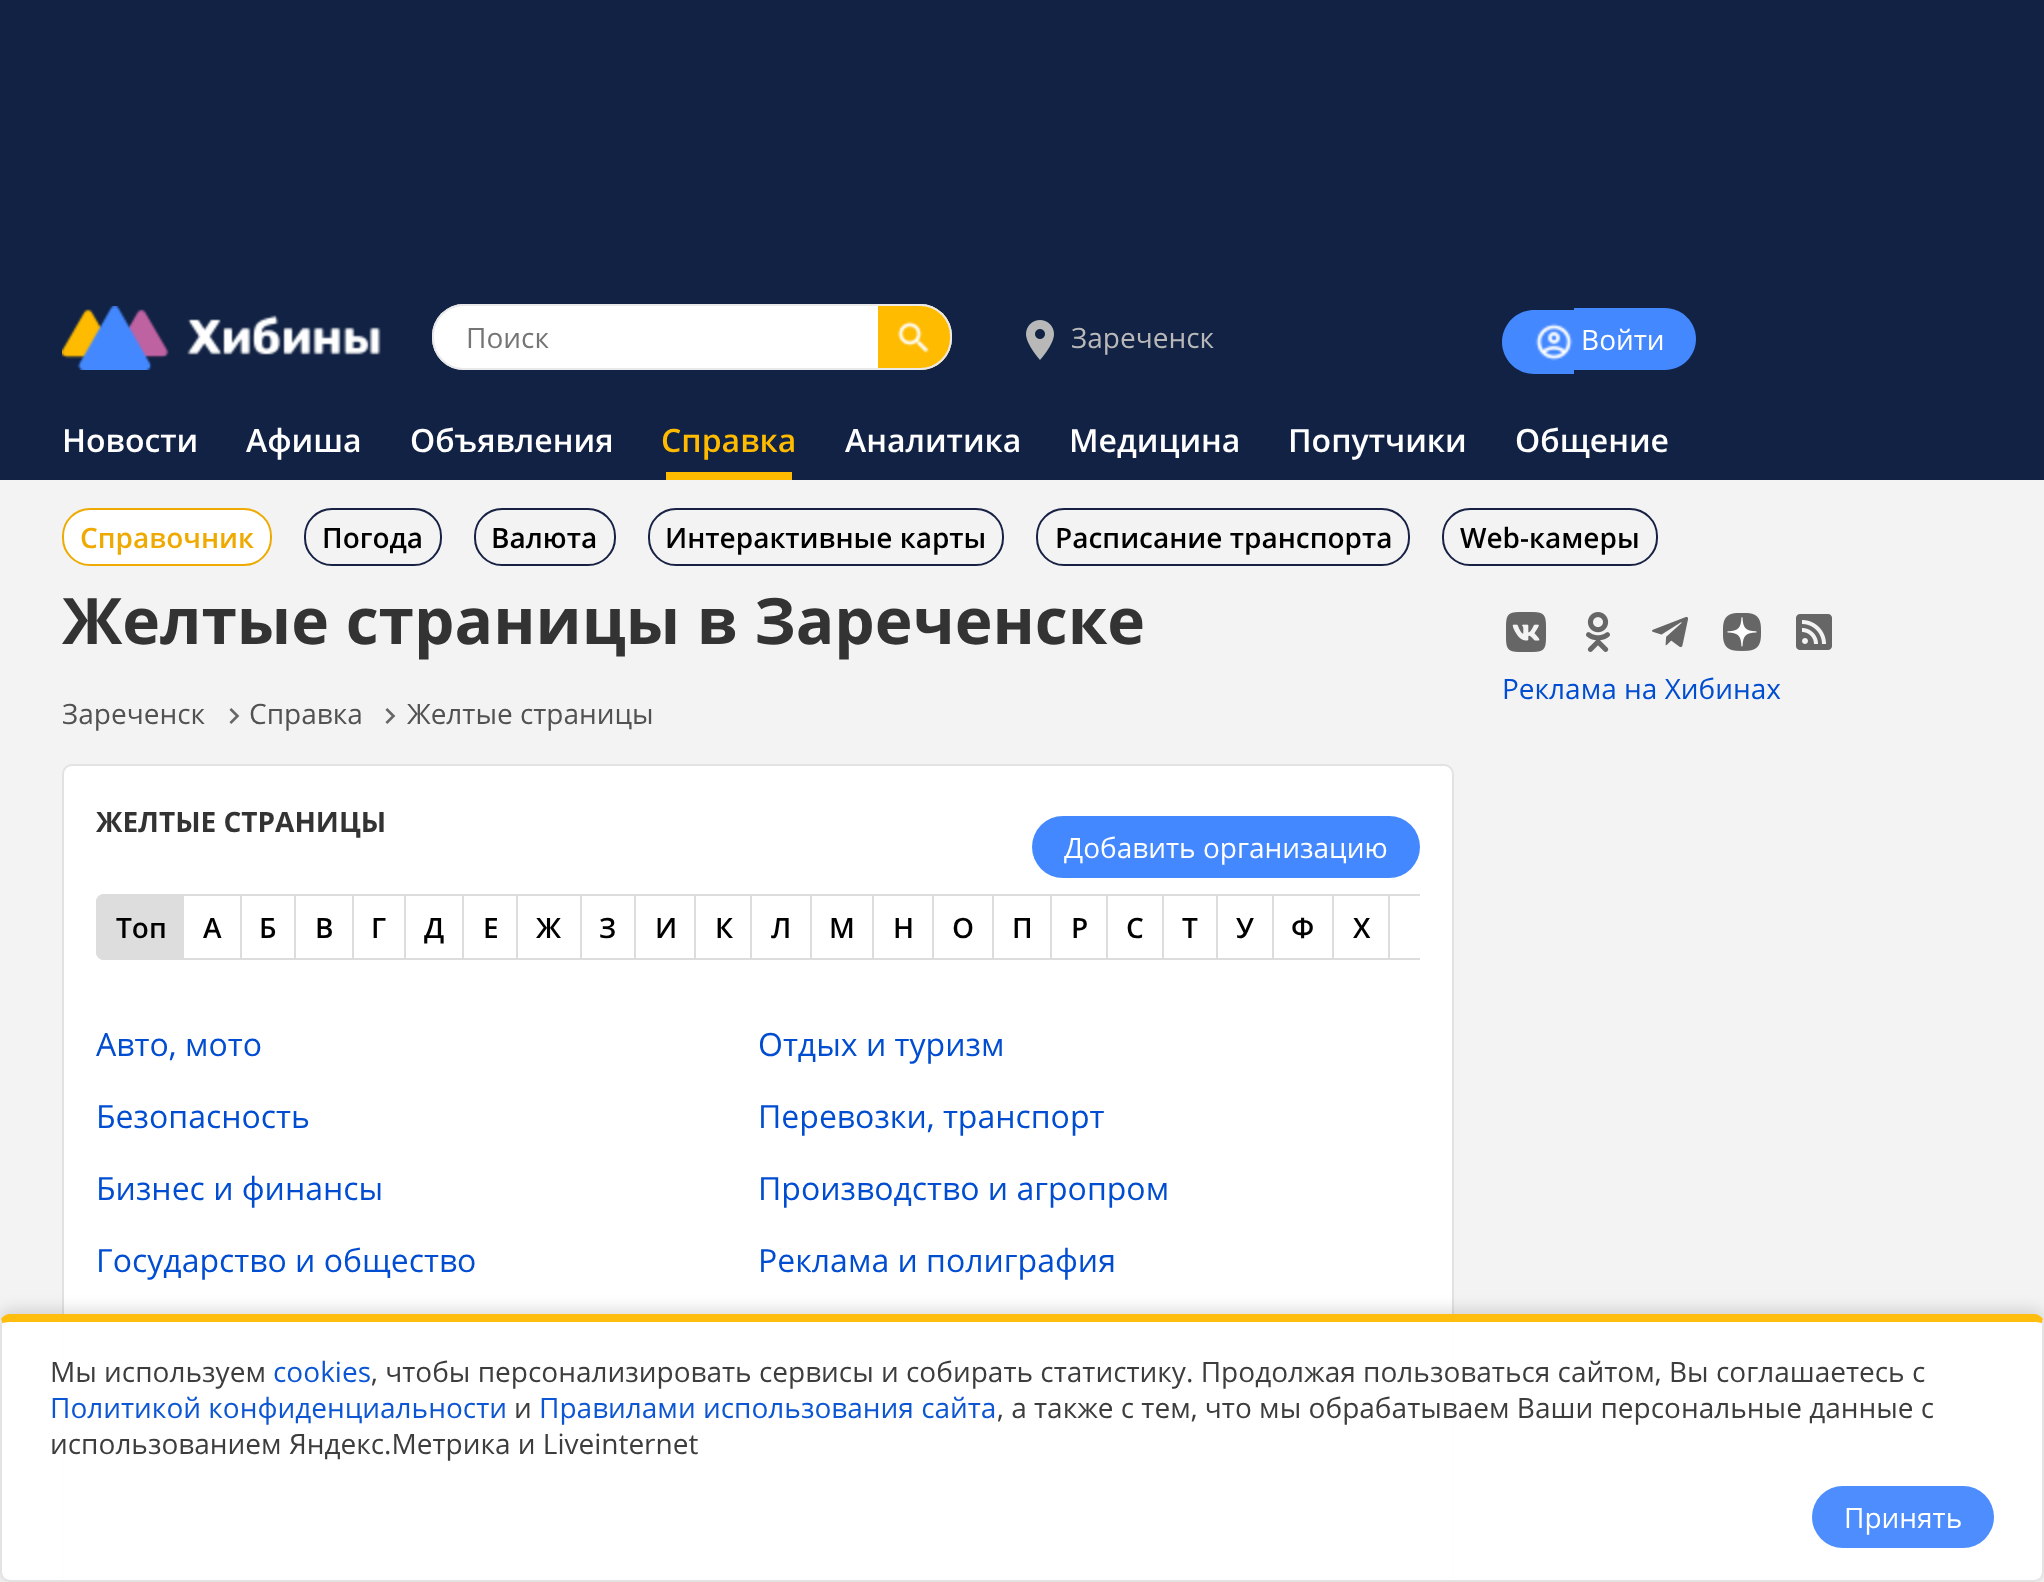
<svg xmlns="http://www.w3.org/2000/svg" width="2044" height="1582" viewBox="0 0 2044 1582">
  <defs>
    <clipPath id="clip1"><path d="M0 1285H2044V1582H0ZM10 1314H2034C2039.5 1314 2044 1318.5 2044 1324V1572C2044 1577.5 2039.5 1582 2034 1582H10C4.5 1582 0 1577.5 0 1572V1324C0 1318.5 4.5 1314 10 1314Z" clip-rule="evenodd"/></clipPath>
  </defs>
  <rect width="100%" height="100%" fill="#f3f3f3"/>
  <path d="M0 0h2044v480H0z" fill="#124"/>
  <image x="62" y="306" width="319" height="64" href="img/1.png"/>
  <rect x="432" y="304" width="520" height="66" rx="32" fill="#fff"/>
  <image x="878" y="306" width="72" height="64" href="img/2.png"/>
  <rect x="433" y="305" width="518" height="64" rx="31" fill="none" stroke="#e9e9e9" stroke-width="2"/>
  <image x="1026" y="320" width="28" height="40" href="img/3.png"/>
  <path d="M1534 310H1574V374H1534C1516.5 374 1502 359.5 1502 342C1502 324.5 1516.5 310 1534 310Z" fill="#48f"/>
  <image x="1535" y="323" width="38" height="38" href="img/4.png"/>
  <path d="M1574 308H1665C1682 308 1696 322 1696 339C1696 356 1682 370 1665 370H1574Z" fill="#48f"/>
  <path d="M666 472h126v8H666z" fill="#fb0"/>
  <rect x="63" y="509" width="208" height="56" rx="27" fill="#fff" stroke="#ea0" stroke-width="2"/>
  <rect x="305" y="509" width="136" height="56" rx="27" fill="none" stroke="#172144" stroke-width="2"/>
  <rect x="475" y="509" width="140" height="56" rx="27" fill="none" stroke="#172144" stroke-width="2"/>
  <rect x="649" y="509" width="354" height="56" rx="27" fill="none" stroke="#172144" stroke-width="2"/>
  <rect x="1037" y="509" width="372" height="56" rx="27" fill="none" stroke="#172144" stroke-width="2"/>
  <rect x="1443" y="509" width="214" height="56" rx="27" fill="none" stroke="#172144" stroke-width="2"/>
  <image x="229" y="708" width="11" height="16" href="img/5.png"/>
  <image x="385" y="708" width="11" height="16" href="img/5.png"/>
  <rect x="63" y="765" width="1390" height="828" rx="9" fill="#fff" stroke="#e2e2e2" stroke-width="2"/>
  <rect x="1032" y="816" width="388" height="62" rx="31" fill="#48f"/>
  <path d="M104 894H184V960H104C99.5 960 96 956.5 96 952V902C96 897.5 99.5 894 104 894Z" fill="#ddd"/>
  <path d="M104 894H184V960H104C100 960 96 956 96 952V902C96 898 100 894 104 894ZM104 896H184V958H104C101 958 98 955 98 952V902C98 899 101 896 104 896Z" fill="#ddd" fill-rule="evenodd"/>
  <path d="M184 894h1236v2H184z" fill="#ddd"/>
  <path d="M240 894h2v66H240z" fill="#ddd"/>
  <path d="M184 958h58v2H184z" fill="#ddd"/>
  <path d="M294 894h2v66H294z" fill="#ddd"/>
  <path d="M242 958h54v2H242z" fill="#ddd"/>
  <path d="M352 894h2v66H352z" fill="#ddd"/>
  <path d="M296 958h58v2H296z" fill="#ddd"/>
  <path d="M404 894h2v66H404z" fill="#ddd"/>
  <path d="M354 958h52v2H354z" fill="#ddd"/>
  <path d="M462 894h2v66H462z" fill="#ddd"/>
  <path d="M406 958h58v2H406z" fill="#ddd"/>
  <path d="M516 894h2v66H516z" fill="#ddd"/>
  <path d="M464 958h54v2H464z" fill="#ddd"/>
  <path d="M580 894h2v66H580z" fill="#ddd"/>
  <path d="M518 958h64v2H518z" fill="#ddd"/>
  <path d="M634 894h2v66H634z" fill="#ddd"/>
  <path d="M582 958h54v2H582z" fill="#ddd"/>
  <path d="M694 894h2v66H694z" fill="#ddd"/>
  <path d="M636 958h60v2H636z" fill="#ddd"/>
  <path d="M750 894h2v66H750z" fill="#ddd"/>
  <path d="M696 958h56v2H696z" fill="#ddd"/>
  <path d="M810 894h2v66H810z" fill="#ddd"/>
  <path d="M752 958h60v2H752z" fill="#ddd"/>
  <path d="M872 894h2v66H872z" fill="#ddd"/>
  <path d="M812 958h62v2H812z" fill="#ddd"/>
  <path d="M932 894h2v66H932z" fill="#ddd"/>
  <path d="M874 958h60v2H874z" fill="#ddd"/>
  <path d="M992 894h2v66H992z" fill="#ddd"/>
  <path d="M934 958h60v2H934z" fill="#ddd"/>
  <path d="M1050 894h2v66H1050z" fill="#ddd"/>
  <path d="M994 958h58v2H994z" fill="#ddd"/>
  <path d="M1106 894h2v66H1106z" fill="#ddd"/>
  <path d="M1052 958h56v2H1052z" fill="#ddd"/>
  <path d="M1162 894h2v66H1162z" fill="#ddd"/>
  <path d="M1108 958h56v2H1108z" fill="#ddd"/>
  <path d="M1216 894h2v66H1216z" fill="#ddd"/>
  <path d="M1164 958h54v2H1164z" fill="#ddd"/>
  <path d="M1272 894h2v66H1272z" fill="#ddd"/>
  <path d="M1218 958h56v2H1218z" fill="#ddd"/>
  <path d="M1332 894h2v66H1332z" fill="#ddd"/>
  <path d="M1274 958h60v2H1274z" fill="#ddd"/>
  <path d="M1388 894h2v66H1388z" fill="#ddd"/>
  <path d="M1334 958h86v2H1334z" fill="#ddd"/>
  <image x="1506" y="612" width="40" height="40" href="img/6.png"/>
  <image x="1586" y="612" width="24" height="40" href="img/7.png"/>
  <image x="1652" y="616" width="36" height="32" href="img/8.png"/>
  <image x="1723" y="613" width="38" height="38" href="img/9.png"/>
  <image x="1796" y="614" width="36" height="36" href="img/10.png"/>
  <g clip-path="url(#clip1)">
    <rect y="1310" width="2044" height="268" rx="10" fill="#00000024" filter="blur(8px)"/>
  </g>
  <path d="M10 1322H2034C2038 1322 2042 1323 2042 1324V1572C2042 1576 2038 1580 2034 1580H10C6 1580 2 1576 2 1572V1324C2 1323 6 1322 10 1322Z" fill="#fffffff2"/>
  <path d="M10 1314C6 1314 3 1316 1 1319L2 1323C3 1323 7 1322 10 1322H2034C2037 1322 2041 1323 2042 1323L2043 1319C2041 1316 2038 1314 2034 1314Z" fill="#ffbb00f2"/>
  <path d="M2044 1572V1324L2043 1319L2042 1323V1324V1572C2042 1574 2041 1576 2040 1578L2041 1579C2043 1578 2044 1575 2044 1572Z" fill="#e3e3e3"/>
  <path d="M10 1582H2034C2037 1582 2040 1581 2041 1579L2040 1578C2038 1579 2036 1580 2034 1580H10C8 1580 6 1579 4 1578L3 1579C4 1581 7 1582 10 1582Z" fill="#e2e2e2f2"/>
  <path d="M0 1324V1572C0 1575 1 1578 3 1579L4 1578C3 1576 2 1574 2 1572V1324V1323L1 1319Z" fill="#e3e3e3"/>
  <rect x="1812" y="1486" width="182" height="62" rx="31" fill="#4d8dfe"/>
  <text x="466" y="348" font-family="Open Sans" font-size="28" fill="#757575">Поиск</text>
  <text x="1071" y="348" font-family="Open Sans" font-size="28" fill="#b8b8b8">Зареченск</text>
  <text x="1581" y="350" font-family="Open Sans" font-size="28" fill="#fff">Войти</text>
  <g font-family="Open Sans" font-size="32" font-weight="600" fill="#fff">
    <text x="62" y="452">Новости</text>
    <text x="246" y="452">Афиша</text>
    <text x="410" y="452">Объявления</text>
  </g>
  <text x="661" y="452" font-family="Open Sans" font-size="32" font-weight="600" fill="#fb0">Справка</text>
  <g font-family="Open Sans" font-size="32" font-weight="600" fill="#fff">
    <text x="845" y="452">Аналитика</text>
    <text x="1069" y="452">Медицина</text>
    <text x="1288" y="452">Попутчики</text>
    <text x="1515" y="452">Общение</text>
  </g>
  <text x="80" y="548" font-family="Open Sans" font-size="28" font-weight="600" fill="#ea0">Справочник</text>
  <g font-family="Open Sans" font-size="28" font-weight="600" fill="#000">
    <text x="322" y="548">Погода</text>
    <text x="491" y="548">Валюта</text>
    <text x="665" y="548">Интерактивные карты</text>
    <text x="1055" y="548">Расписание транспорта</text>
    <text x="1460" y="548">Web-камеры</text>
  </g>
  <text x="62" y="644" font-family="Open Sans" font-size="64" font-weight="bold" fill="#333">Желтые страницы в Зареченске</text>
  <g font-family="Open Sans" font-size="28" fill="#525252">
    <text x="62" y="724">Зареченск</text>
    <text x="249" y="724">Справка</text>
    <text x="407" y="724">Желтые страницы</text>
  </g>
  <text x="96" y="832" font-family="Open Sans" font-size="28" font-weight="bold" fill="#333">ЖЕЛТЫЕ СТРАНИЦЫ</text>
  <text x="1064" y="858" font-family="Open Sans" font-size="28" fill="#fff">Добавить организацию</text>
  <g font-family="Open Sans" font-size="28" font-weight="600" fill="#000">
    <text x="116" y="938">Топ</text>
    <text x="203" y="938">А</text>
    <text x="259" y="938">Б</text>
    <text x="315" y="938">В</text>
    <text x="371" y="938">Г</text>
    <text x="424" y="938">Д</text>
    <text x="483" y="938">Е</text>
    <text x="536" y="938">Ж</text>
    <text x="599" y="938">З</text>
    <text x="655" y="938">И</text>
    <text x="715" y="938">К</text>
    <text x="771" y="938">Л</text>
    <text x="829" y="938">М</text>
    <text x="893" y="938">Н</text>
    <text x="952" y="938">О</text>
    <text x="1012" y="938">П</text>
    <text x="1071" y="938">Р</text>
    <text x="1126" y="938">С</text>
    <text x="1182" y="938">Т</text>
    <text x="1236" y="938">У</text>
    <text x="1291" y="938">Ф</text>
    <text x="1353" y="938">Х</text>
  </g>
  <g font-family="Open Sans" font-size="32" fill="#004dd1">
    <text x="96" y="1056">Авто, мото</text>
    <text x="96" y="1128">Безопасность</text>
    <text x="96" y="1200">Бизнес и финансы</text>
    <text x="96" y="1272">Государство и общество</text>
    <text x="758" y="1056">Отдых и туризм</text>
    <text x="758" y="1128">Перевозки, транспорт</text>
    <text x="758" y="1200">Производство и агропром</text>
    <text x="758" y="1272">Реклама и полиграфия</text>
  </g>
  <text x="1502" y="699" font-family="Open Sans" font-size="28" fill="#004dd1">Реклама на Хибинах</text>
  <text x="50" y="1382" font-family="Open Sans" font-size="28" fill="#3d3d3d">Мы используем</text>
  <text x="273" y="1382" font-family="Open Sans" font-size="28" fill="#0d56d3">cookies</text>
  <text x="371" y="1382" font-family="Open Sans" font-size="28" fill="#3d3d3d">, чтобы персонализировать сервисы и собирать статистику. Продолжая пользоваться сайтом, Вы соглашаетесь с</text>
  <text x="50" y="1418" font-family="Open Sans" font-size="28" fill="#0d56d3">Политикой конфиденциальности</text>
  <text x="514" y="1418" font-family="Open Sans" font-size="28" fill="#3d3d3d">и</text>
  <text x="539" y="1418" font-family="Open Sans" font-size="28" fill="#0d56d3">Правилами использования сайта</text>
  <g font-family="Open Sans" font-size="28" fill="#3d3d3d">
    <text x="997" y="1418">, а также с тем, что мы обрабатываем Ваши персональные данные с</text>
    <text x="50" y="1454">использованием Яндекс.Метрика и Liveinternet</text>
  </g>
  <text x="1844" y="1528" font-family="Open Sans" font-size="28" fill="#fff">Принять</text>
</svg>
